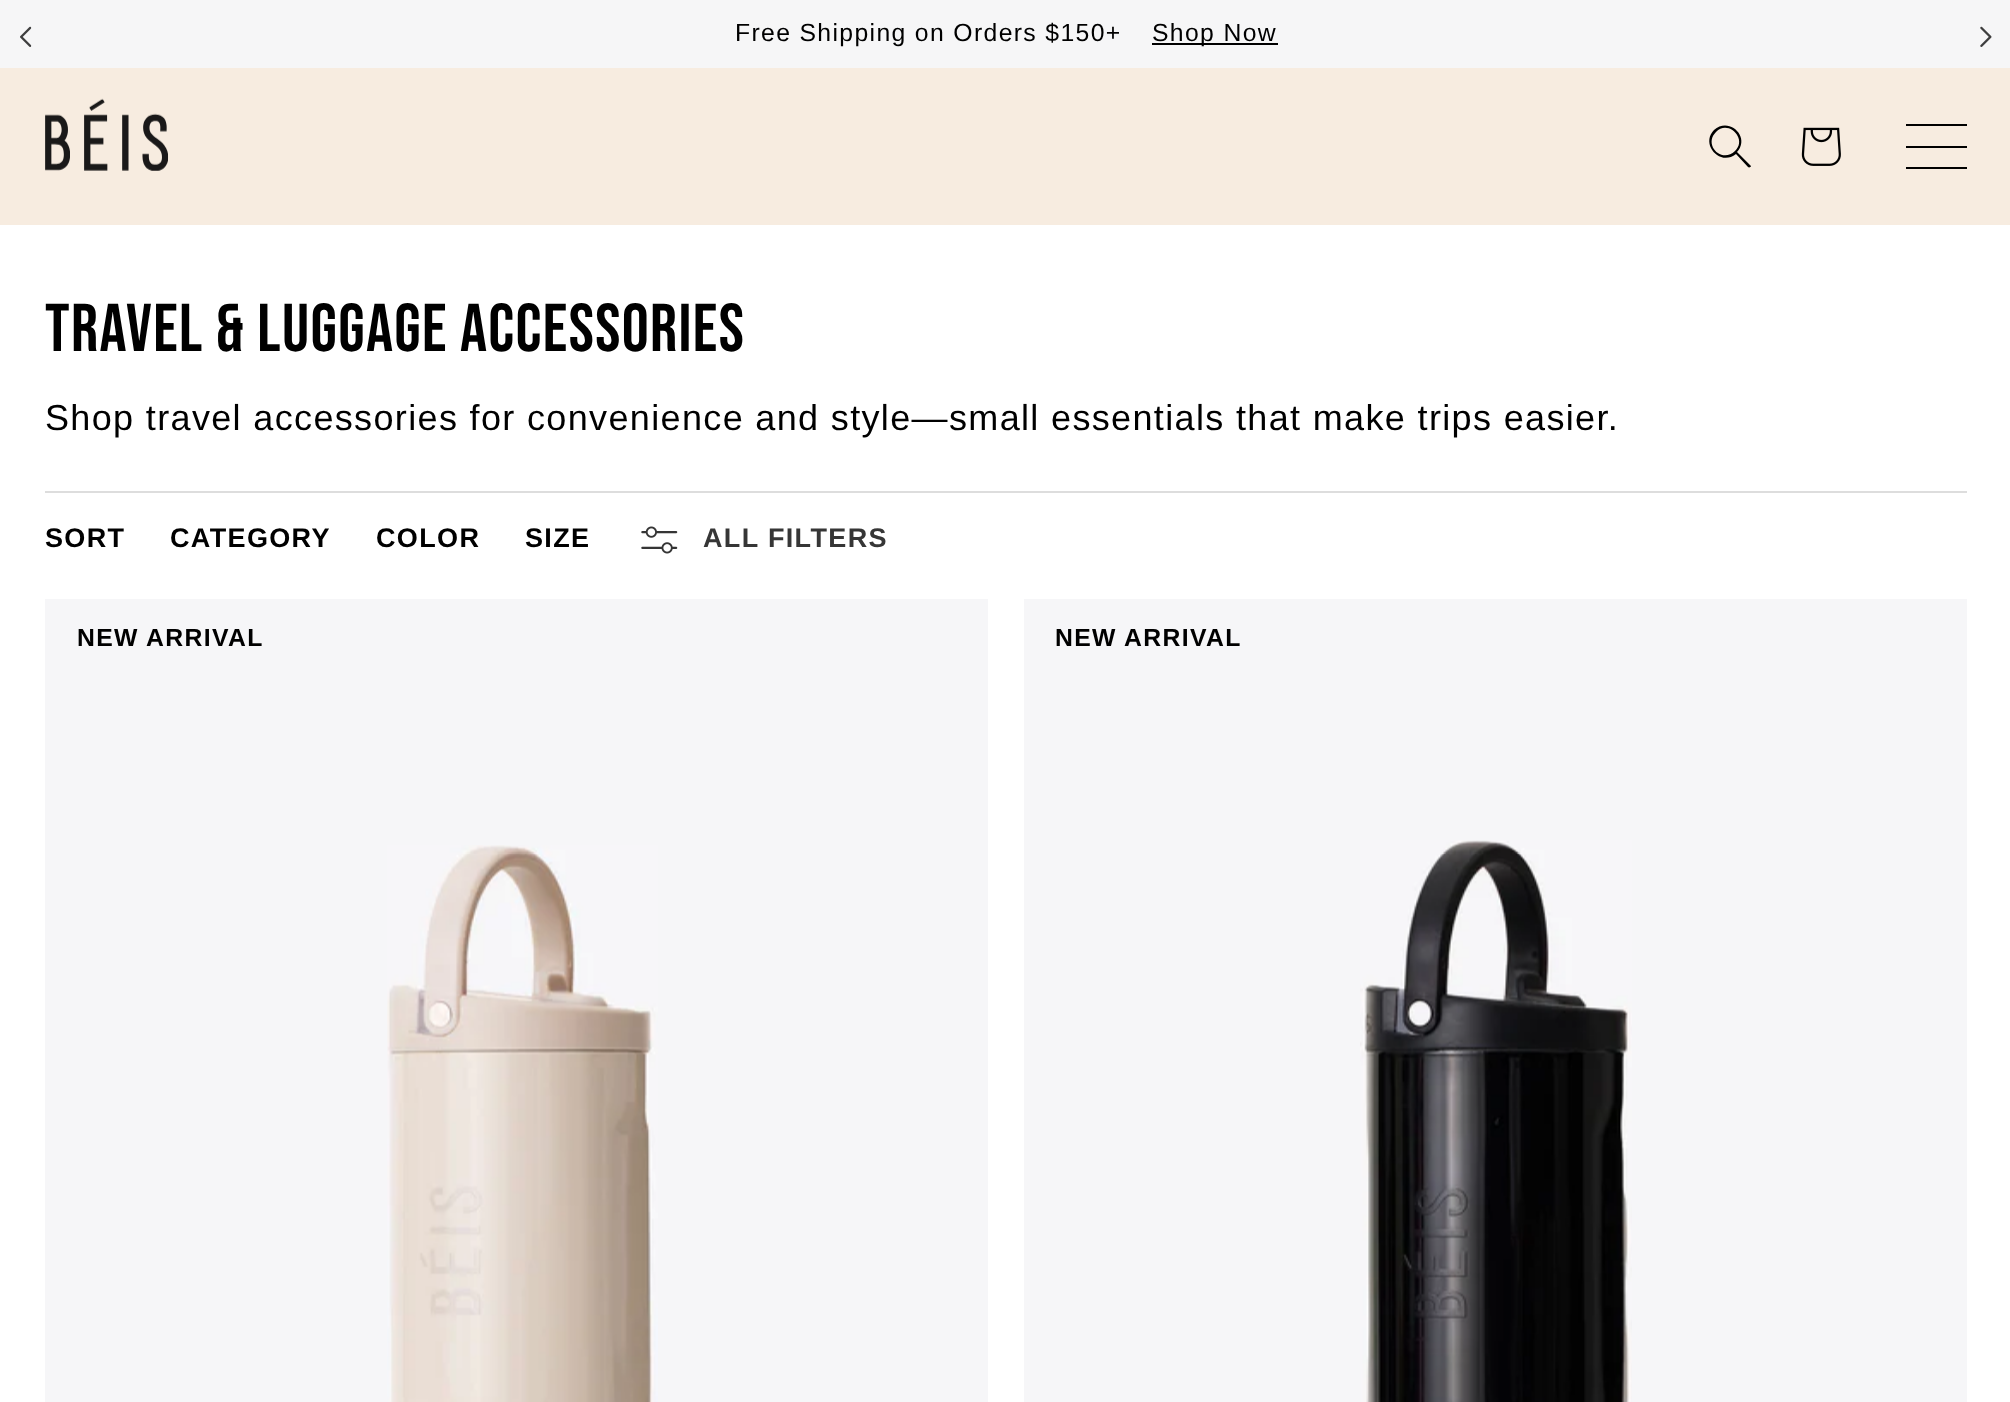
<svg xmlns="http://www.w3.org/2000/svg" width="2010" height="1402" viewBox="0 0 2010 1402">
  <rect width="100%" height="100%" fill="#fff"/>
  <path d="M0 0h2010v68H0z" fill="#f6f6f7"/>
  <path d="M1152 43h126v2H1152z" fill="#000"/>
  <image x="20" y="26" width="12" height="21" href="img/1.png"/>
  <image x="1980" y="26" width="12" height="21" href="img/2.png"/>
  <path d="M0 68h2010v157H0z" fill="#f7ece0"/>
  <image x="45" y="98" width="124" height="73" href="img/3.png"/>
  <path d="M1735 151C1722 164 1703 145 1716 132C1728 119 1748 139 1735 151M1736 154C1720 167 1700 144 1714 130C1729 116 1751 137 1737 152L1751 166C1751 167 1749 168 1748 167Z" fill="#000" fill-rule="evenodd"/>
  <image x="1801" y="127" width="40" height="39" href="img/4.png"/>
  <path d="M1906 124h61v2H1906z" fill="#000"/>
  <path d="M1906 146h61v2H1906z" fill="#000"/>
  <path d="M1906 167h61v2H1906z" fill="#000"/>
  <path d="M45 491h1922v2H45z" fill="#ddd"/>
  <image x="641" y="526" width="37" height="28" href="img/5.png"/>
  <path d="M45 599h943v803H45z" fill="#f6f6f8"/>
  <image x="387" y="845" width="271" height="557" href="img/6.png"/>
  <path d="M1024 599h943v803H1024z" fill="#f6f6f8"/>
  <image x="1360" y="840" width="272" height="562" href="img/7.png"/>
  <g font-family="Liberation Sans" font-size="24.75" letter-spacing="1.35" fill="#000">
    <text x="735" y="41">Free Shipping on Orders $150+</text>
    <text x="1152" y="41">Shop Now</text>
  </g>
  <text x="45" y="351" font-family="Bebas Neue" font-size="67.5" letter-spacing="1.35" fill="#000">Travel &amp; Luggage Accessories</text>
  <text x="45" y="430" font-family="Liberation Sans" font-size="36" letter-spacing="1.35" fill="#000">Shop travel accessories for convenience and style—small essentials that make trips easier.</text>
  <g font-family="Liberation Sans" font-size="27" font-weight="bold" letter-spacing="1.35" fill="#000">
    <text x="45" y="547">SORT</text>
    <text x="170" y="547">CATEGORY</text>
    <text x="376" y="547">COLOR</text>
    <text x="525" y="547">SIZE</text>
  </g>
  <text x="703" y="547" font-family="Liberation Sans" font-size="27" font-weight="bold" letter-spacing="1.35" fill="#363636">ALL FILTERS</text>
  <g font-family="Liberation Sans" font-size="24.75" font-weight="bold" letter-spacing="1.35" fill="#000">
    <text x="77" y="646">NEW ARRIVAL</text>
    <text x="1055" y="646">NEW ARRIVAL</text>
  </g>
</svg>
